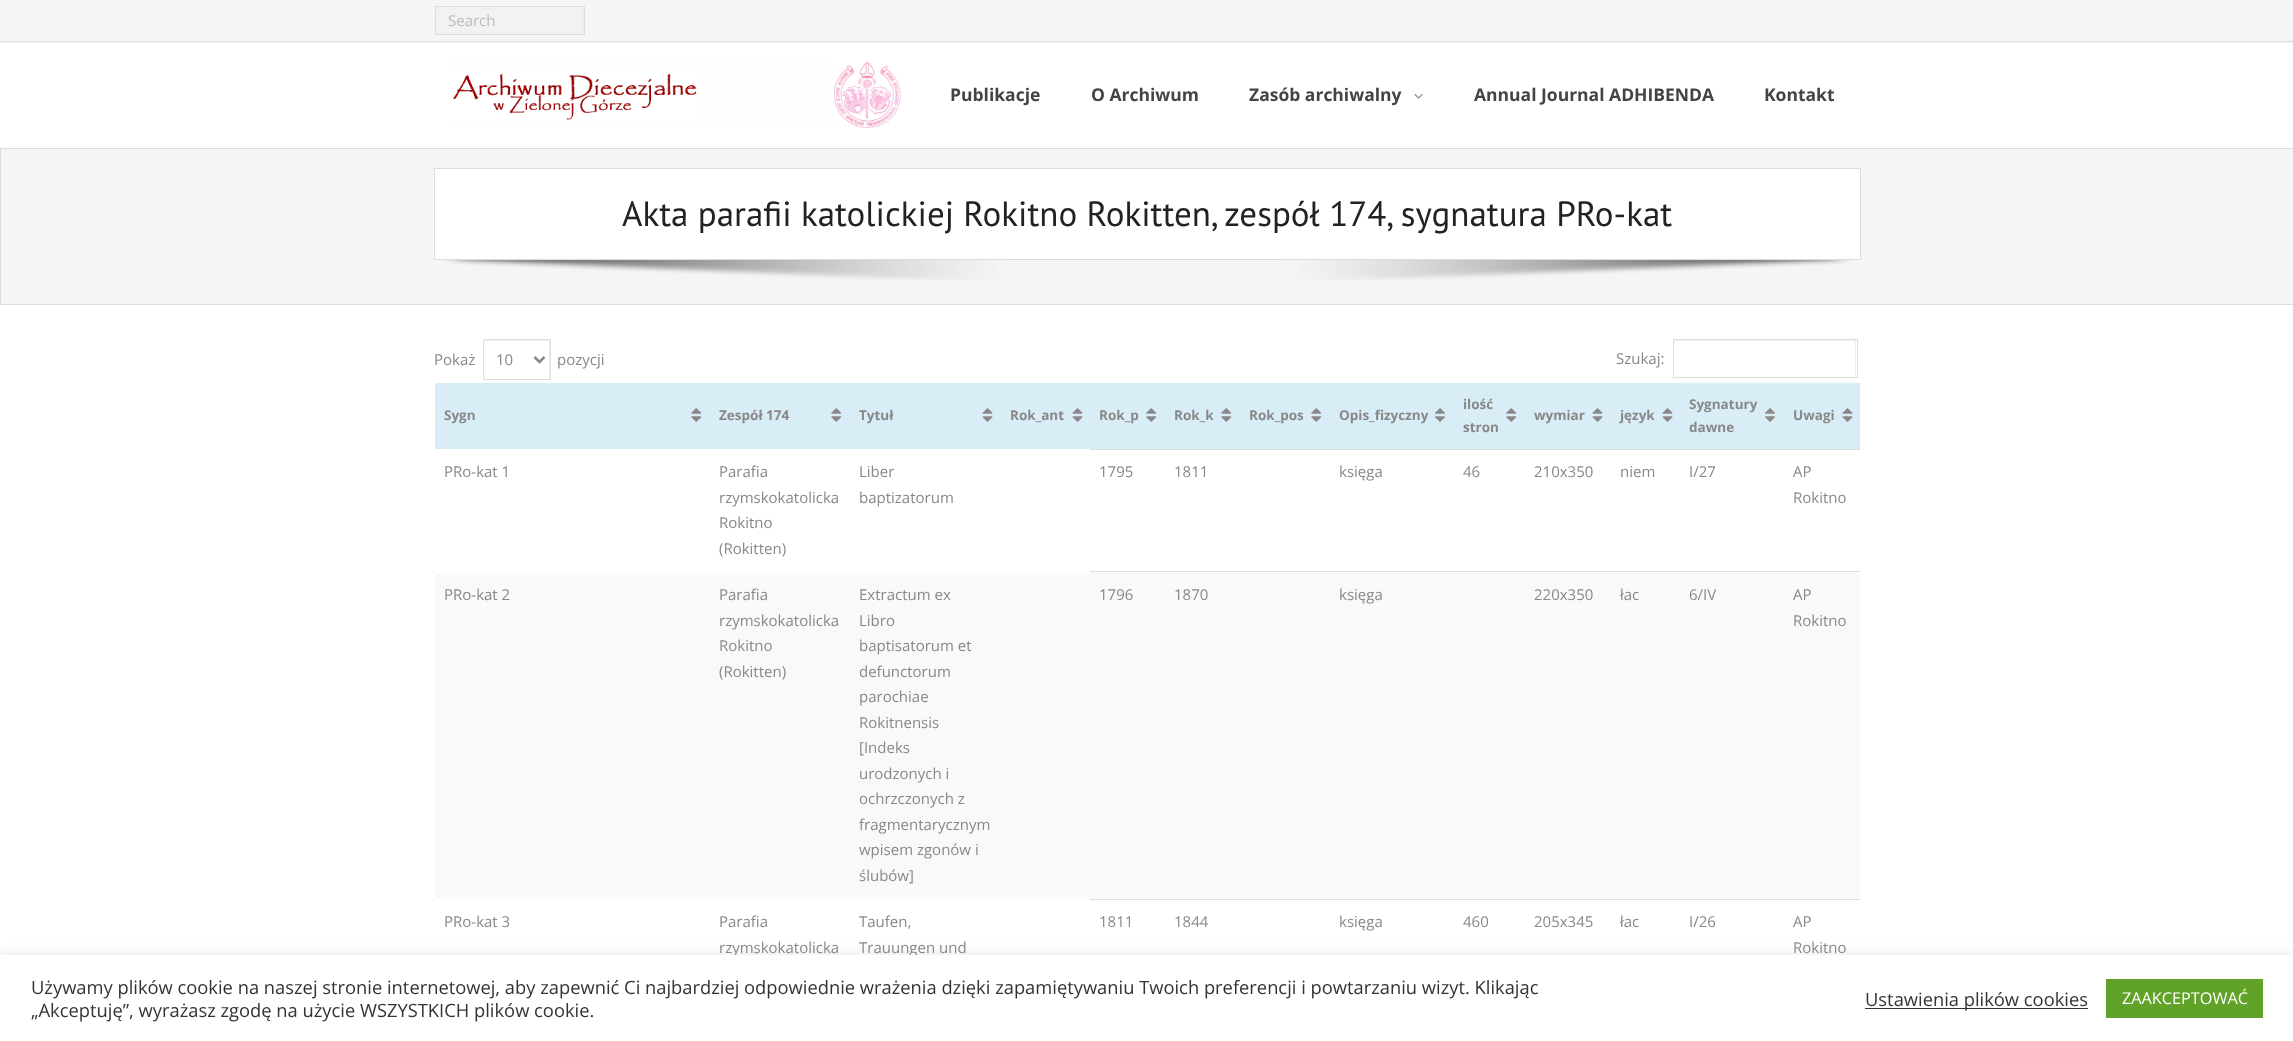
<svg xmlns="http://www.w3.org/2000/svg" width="2293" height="1041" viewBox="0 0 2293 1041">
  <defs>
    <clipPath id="clip1"><path d="M436 8h148v26H436z"/></clipPath>
    <clipPath id="clip2"><path d="M484 340h66v39H484z"/></clipPath>
    <clipPath id="clip3"><path d="M1674 340h182v36H1674z"/></clipPath>
  </defs>
  <rect width="100%" height="100%" fill="#fff"/>
  <path d="M0 148h2293v1H0z" fill="#ddd"/>
  <path d="M0 0h2293v43H0z" fill="#f5f5f5"/>
  <path d="M0 41h2293v1H0z" fill="#ddd"/>
  <path d="M436 7h148v27H436z" fill="#f2f2f2"/>
  <g clip-path="url(#clip1)">
    <path d="M312-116H708V158H312ZM435 9H582V35H435Z" fill="#eee" fill-rule="evenodd"/>
  </g>
  <path d="M435.5 6.5h149v28H435.5z" fill="none" stroke="#ddd"/>
  <image x="453" y="61" width="448" height="67" href="img/1.png"/>
  <image x="1414" y="94" width="9" height="5" href="img/2.png"/>
  <path d="M1 149h2292v155H1z" fill="#f5f5f5"/>
  <path d="M0 304h2293v1H0z" fill="#ddd"/>
  <path d="M0 149h1v156H0z" fill="#ddd"/>
  <path d="M434.5 168.5h1426v91H434.5z" fill="#fff" stroke="#ddd"/>
  <image x="444" y="260" width="1407" height="20" href="img/3.png"/>
  <g clip-path="url(#clip2)">
    <path d="M360 216H674V502H360ZM482 341H549V380H482Z" fill="#eee" fill-rule="evenodd"/>
  </g>
  <path d="M483.5 339.5h67v40H483.5z" fill="none" stroke="#ddd"/>
  <path d="M534.5 357L539.5 362L544.5 357" fill="none" stroke="#888" stroke-width="2.5"/>
  <g clip-path="url(#clip3)">
    <path d="M1550 216H1980V500H1550ZM1672 341H1855V378H1672Z" fill="#eee" fill-rule="evenodd"/>
  </g>
  <path d="M1673.5 339.5h184v38H1673.5z" fill="none" stroke="#ddd"/>
  <path d="M434 449h1v1H434z" fill="#ddd"/>
  <path d="M435 383h1425v66H435z" fill="#d9edf7"/>
  <image x="691" y="408" width="11" height="14" href="img/4.png"/>
  <image x="831" y="408" width="11" height="14" href="img/4.png"/>
  <image x="982" y="408" width="11" height="14" href="img/5.png"/>
  <image x="1072" y="408" width="11" height="14" href="img/5.png"/>
  <image x="1146" y="408" width="11" height="14" href="img/4.png"/>
  <image x="1221" y="408" width="11" height="14" href="img/4.png"/>
  <image x="1311" y="408" width="11" height="14" href="img/4.png"/>
  <image x="1435" y="408" width="10" height="14" href="img/6.png"/>
  <image x="1506" y="408" width="11" height="14" href="img/4.png"/>
  <image x="1592" y="408" width="11" height="14" href="img/5.png"/>
  <image x="1662" y="408" width="11" height="14" href="img/5.png"/>
  <image x="1765" y="408" width="10" height="14" href="img/6.png"/>
  <path d="M1089 449h771v1H1089z" fill="#ddd"/>
  <image x="1842" y="408" width="11" height="14" href="img/5.png"/>
  <path d="M1089 571h771v1H1089z" fill="#ddd"/>
  <path d="M1089 449h1v123H1089z" fill="#fff"/>
  <path d="M434 571h1v1H434z" fill="#ddd"/>
  <path d="M435 573h655v326H435z" fill="#f9f9f9"/>
  <path d="M1090 573h770v326H1090z" fill="#f9f9f9"/>
  <path d="M1089 899h771v1H1089z" fill="#ddd"/>
  <path d="M1089 899h1v1H1089z" fill="#fff"/>
  <path d="M434 899h1v1H434z" fill="#ddd"/>
  <path d="M0 954h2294v86H0z" fill="#acabab4d" filter="blur(6px)"/>
  <text x="448" y="26" font-family="Open Sans" font-size="15" fill="#bbb">Search</text>
  <g font-family="Open Sans" font-size="17.5" font-weight="bold" fill="#444">
    <text x="950" y="101">Publikacje</text>
    <text x="1091" y="101">O Archiwum</text>
    <text x="1249" y="101">Zasób archiwalny</text>
    <text x="1474" y="101">Annual Journal ADHIBENDA</text>
    <text x="1764" y="101">Kontakt</text>
  </g>
  <text x="622" y="226" font-family="PT Sans" font-size="35" fill="#222">Akta parafii katolickiej Rokitno Rokitten, zespół 174, sygnatura PRo-kat</text>
  <g font-family="Open Sans" font-size="15" fill="#888">
    <text x="434" y="365">Pokaż</text>
    <text x="496" y="365">10</text>
    <text x="557" y="365">pozycji</text>
    <text x="1616" y="364">Szukaj:</text>
  </g>
  <g font-family="Open Sans" font-size="13.5" font-weight="bold" fill="#888">
    <text x="444" y="420">Sygn</text>
    <text x="719" y="420">Zespół 174</text>
    <text x="859" y="420">Tytuł</text>
    <text x="1010" y="420">Rok_ant</text>
    <text x="1099" y="420">Rok_p</text>
    <text x="1174" y="420">Rok_k</text>
    <text x="1249" y="420">Rok_pos</text>
    <text x="1339" y="420">Opis_fizyczny</text>
    <text x="1463" y="409">ilość</text>
    <text x="1463" y="432">stron</text>
    <text x="1534" y="420">wymiar</text>
    <text x="1620" y="420">język</text>
    <text x="1689" y="409">Sygnatury</text>
    <text x="1689" y="432">dawne</text>
    <text x="1793" y="420">Uwagi</text>
  </g>
  <g font-family="Open Sans" font-size="15" fill="#888">
    <text x="444" y="477">PRo-kat 1</text>
    <text x="719" y="477">Parafia</text>
    <text x="719" y="503">rzymskokatolicka</text>
    <text x="719" y="528">Rokitno</text>
    <text x="719" y="554">(Rokitten)</text>
    <text x="859" y="477">Liber</text>
    <text x="859" y="503">baptizatorum</text>
    <text x="1099" y="477">1795</text>
    <text x="1174" y="477">1811</text>
    <text x="1339" y="477">księga</text>
    <text x="1463" y="477">46</text>
    <text x="1534" y="477">210x350</text>
    <text x="1620" y="477">niem</text>
    <text x="1689" y="477">I/27</text>
    <text x="1793" y="477">AP</text>
    <text x="1793" y="503">Rokitno</text>
    <text x="444" y="600">PRo-kat 2</text>
    <text x="719" y="600">Parafia</text>
    <text x="719" y="626">rzymskokatolicka</text>
    <text x="719" y="651">Rokitno</text>
    <text x="719" y="677">(Rokitten)</text>
    <text x="859" y="600">Extractum ex</text>
    <text x="859" y="626">Libro</text>
    <text x="859" y="651">baptisatorum et</text>
    <text x="859" y="677">defunctorum</text>
    <text x="859" y="702">parochiae</text>
    <text x="859" y="728">Rokitnensis</text>
    <text x="859" y="753">[Indeks</text>
    <text x="859" y="779">urodzonych i</text>
    <text x="859" y="804">ochrzczonych z</text>
    <text x="859" y="830">fragmentarycznym</text>
    <text x="859" y="855">wpisem zgonów i</text>
    <text x="859" y="881">ślubów]</text>
    <text x="1099" y="600">1796</text>
    <text x="1174" y="600">1870</text>
    <text x="1339" y="600">księga</text>
    <text x="1534" y="600">220x350</text>
    <text x="1620" y="600">łac</text>
    <text x="1689" y="600">6/IV</text>
    <text x="1793" y="600">AP</text>
    <text x="1793" y="626">Rokitno</text>
    <text x="444" y="927">PRo-kat 3</text>
    <text x="719" y="927">Parafia</text>
    <text x="719" y="953">rzymskokatolicka</text>
    <text x="859" y="927">Taufen,</text>
    <text x="859" y="953">Trauungen und</text>
    <text x="1099" y="927">1811</text>
    <text x="1174" y="927">1844</text>
    <text x="1339" y="927">księga</text>
    <text x="1463" y="927">460</text>
    <text x="1534" y="927">205x345</text>
    <text x="1620" y="927">łac</text>
    <text x="1689" y="927">I/26</text>
    <text x="1793" y="927">AP</text>
    <text x="1793" y="953">Rokitno</text>
  </g>
  <path d="M0 955h2293v86H0z" fill="#fff"/>
  <g font-family="Open Sans" font-size="18.33" fill="#333">
    <text x="31" y="994">Używamy plików cookie na naszej stronie internetowej, aby zapewnić Ci najbardziej odpowiednie wrażenia dzięki zapamiętywaniu Twoich preferencji i powtarzaniu wizyt. Klikając</text>
    <text x="31" y="1017">„Akceptuję”, wyrażasz zgodę na użycie WSZYSTKICH plików cookie.</text>
  </g>
  <path d="M1865 1008h223v1H1865z" fill="#333"/>
  <text x="1865" y="1006" font-family="Open Sans" font-size="18.33" fill="#333">Ustawienia plików cookies</text>
  <path d="M2106 979h157v39H2106z" fill="#61a229"/>
  <text x="2122" y="1004" font-family="Open Sans" font-size="16.25" fill="#fff">ZAAKCEPTOWAĆ</text>
</svg>
